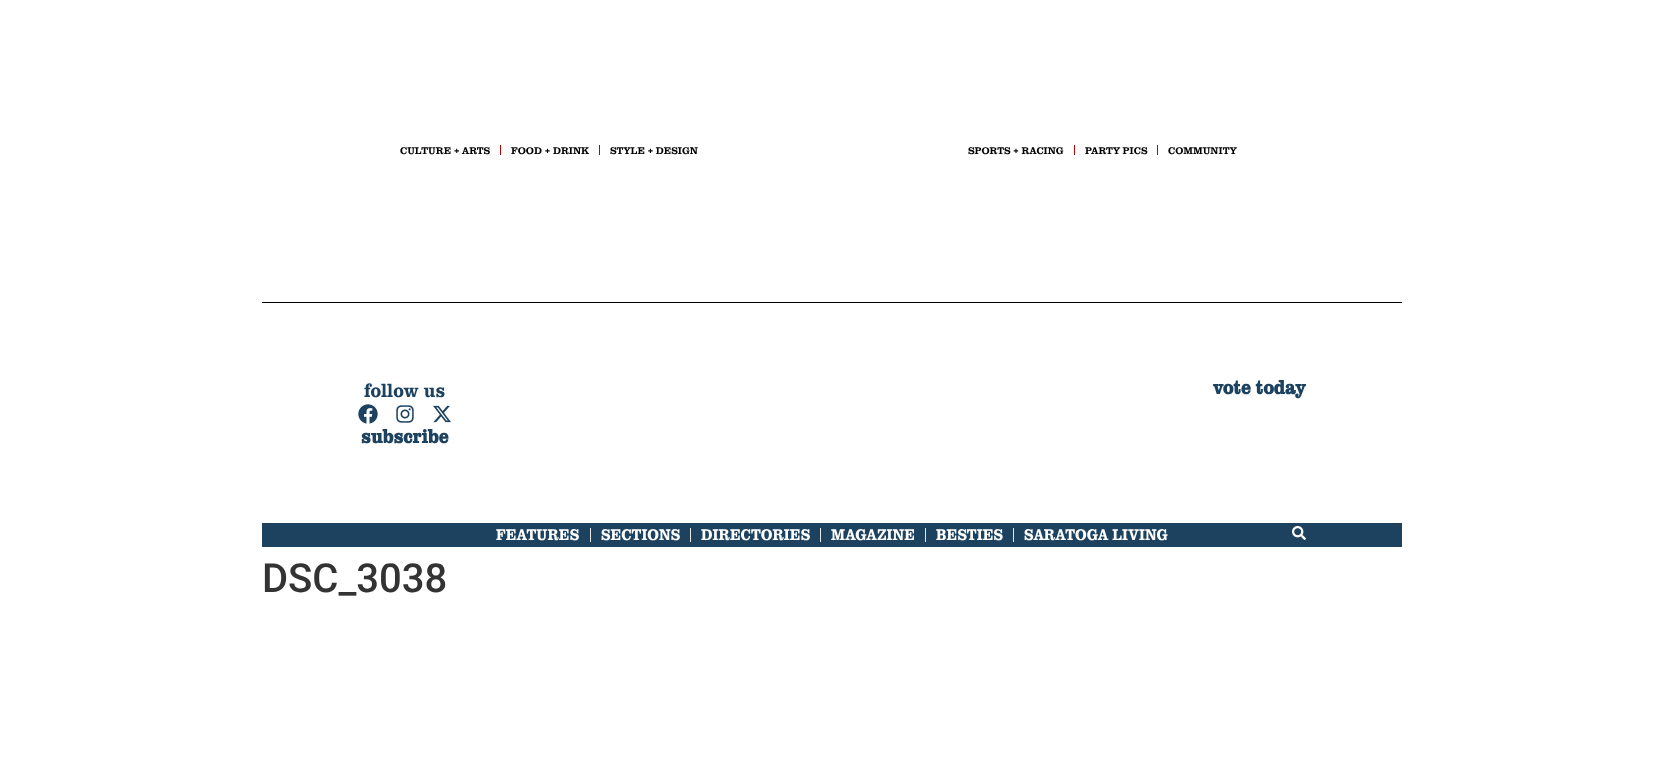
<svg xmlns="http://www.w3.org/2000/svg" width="1664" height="772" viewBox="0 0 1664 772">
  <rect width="100%" height="100%" fill="#fff"/>
  <path d="M500 145h1v10H500z" fill="#b20404"/>
  <path d="M599 145h1v10H599z" fill="#b20404"/>
  <path d="M1074 145h1v10H1074z" fill="#b20404"/>
  <path d="M1157 145h1v10H1157z" fill="#b20404"/>
  <path d="M262 302h1140v1H262z" fill="#000"/>
  <image x="358" y="404" width="20" height="20" href="img/1.png"/>
  <image x="396" y="405" width="18" height="18" href="img/2.png"/>
  <image x="433" y="405" width="18" height="18" href="img/3.png"/>
  <path d="M262 523h1140v24H262z" fill="#1c4260"/>
  <path d="M590 528h1v14H590z" fill="#e6e8e8"/>
  <path d="M690 528h1v14H690z" fill="#e6e8e8"/>
  <path d="M820 528h1v14H820z" fill="#e6e8e8"/>
  <path d="M925 528h1v14H925z" fill="#e6e8e8"/>
  <path d="M1013 528h1v14H1013z" fill="#e6e8e8"/>
  <image x="1292" y="526" width="14" height="14" href="img/4.png"/>
  <g font-family="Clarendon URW" font-size="10" font-weight="500" fill="#000">
    <text x="400" y="154">CULTURE + ARTS</text>
    <text x="511" y="154">FOOD + DRINK</text>
    <text x="610" y="154">STYLE + DESIGN</text>
    <text x="968" y="154">SPORTS + RACING</text>
    <text x="1085" y="154">PARTY PICS</text>
    <text x="1168" y="154">COMMUNITY</text>
  </g>
  <text x="364" y="397" font-family="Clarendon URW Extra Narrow" font-size="20" font-weight="500" fill="#1c4260">follow us</text>
  <g font-family="Clarendon URW Extra Narrow" font-size="20" font-weight="bold" fill="#1c4260">
    <text x="361" y="443">subscribe</text>
    <text x="1213" y="394">vote today</text>
  </g>
  <g font-family="Clarendon URW Extra Narrow" font-size="16" font-weight="500" fill="#fff">
    <text x="496" y="540">FEATURES</text>
    <text x="601" y="540">SECTIONS</text>
    <text x="701" y="540">DIRECTORIES</text>
    <text x="831" y="540">MAGAZINE</text>
    <text x="936" y="540">BESTIES</text>
    <text x="1024" y="540">SARATOGA LIVING</text>
  </g>
  <text x="262" y="592" font-family="Roboto" font-size="40" font-weight="500" fill="#333">DSC_3038</text>
</svg>
